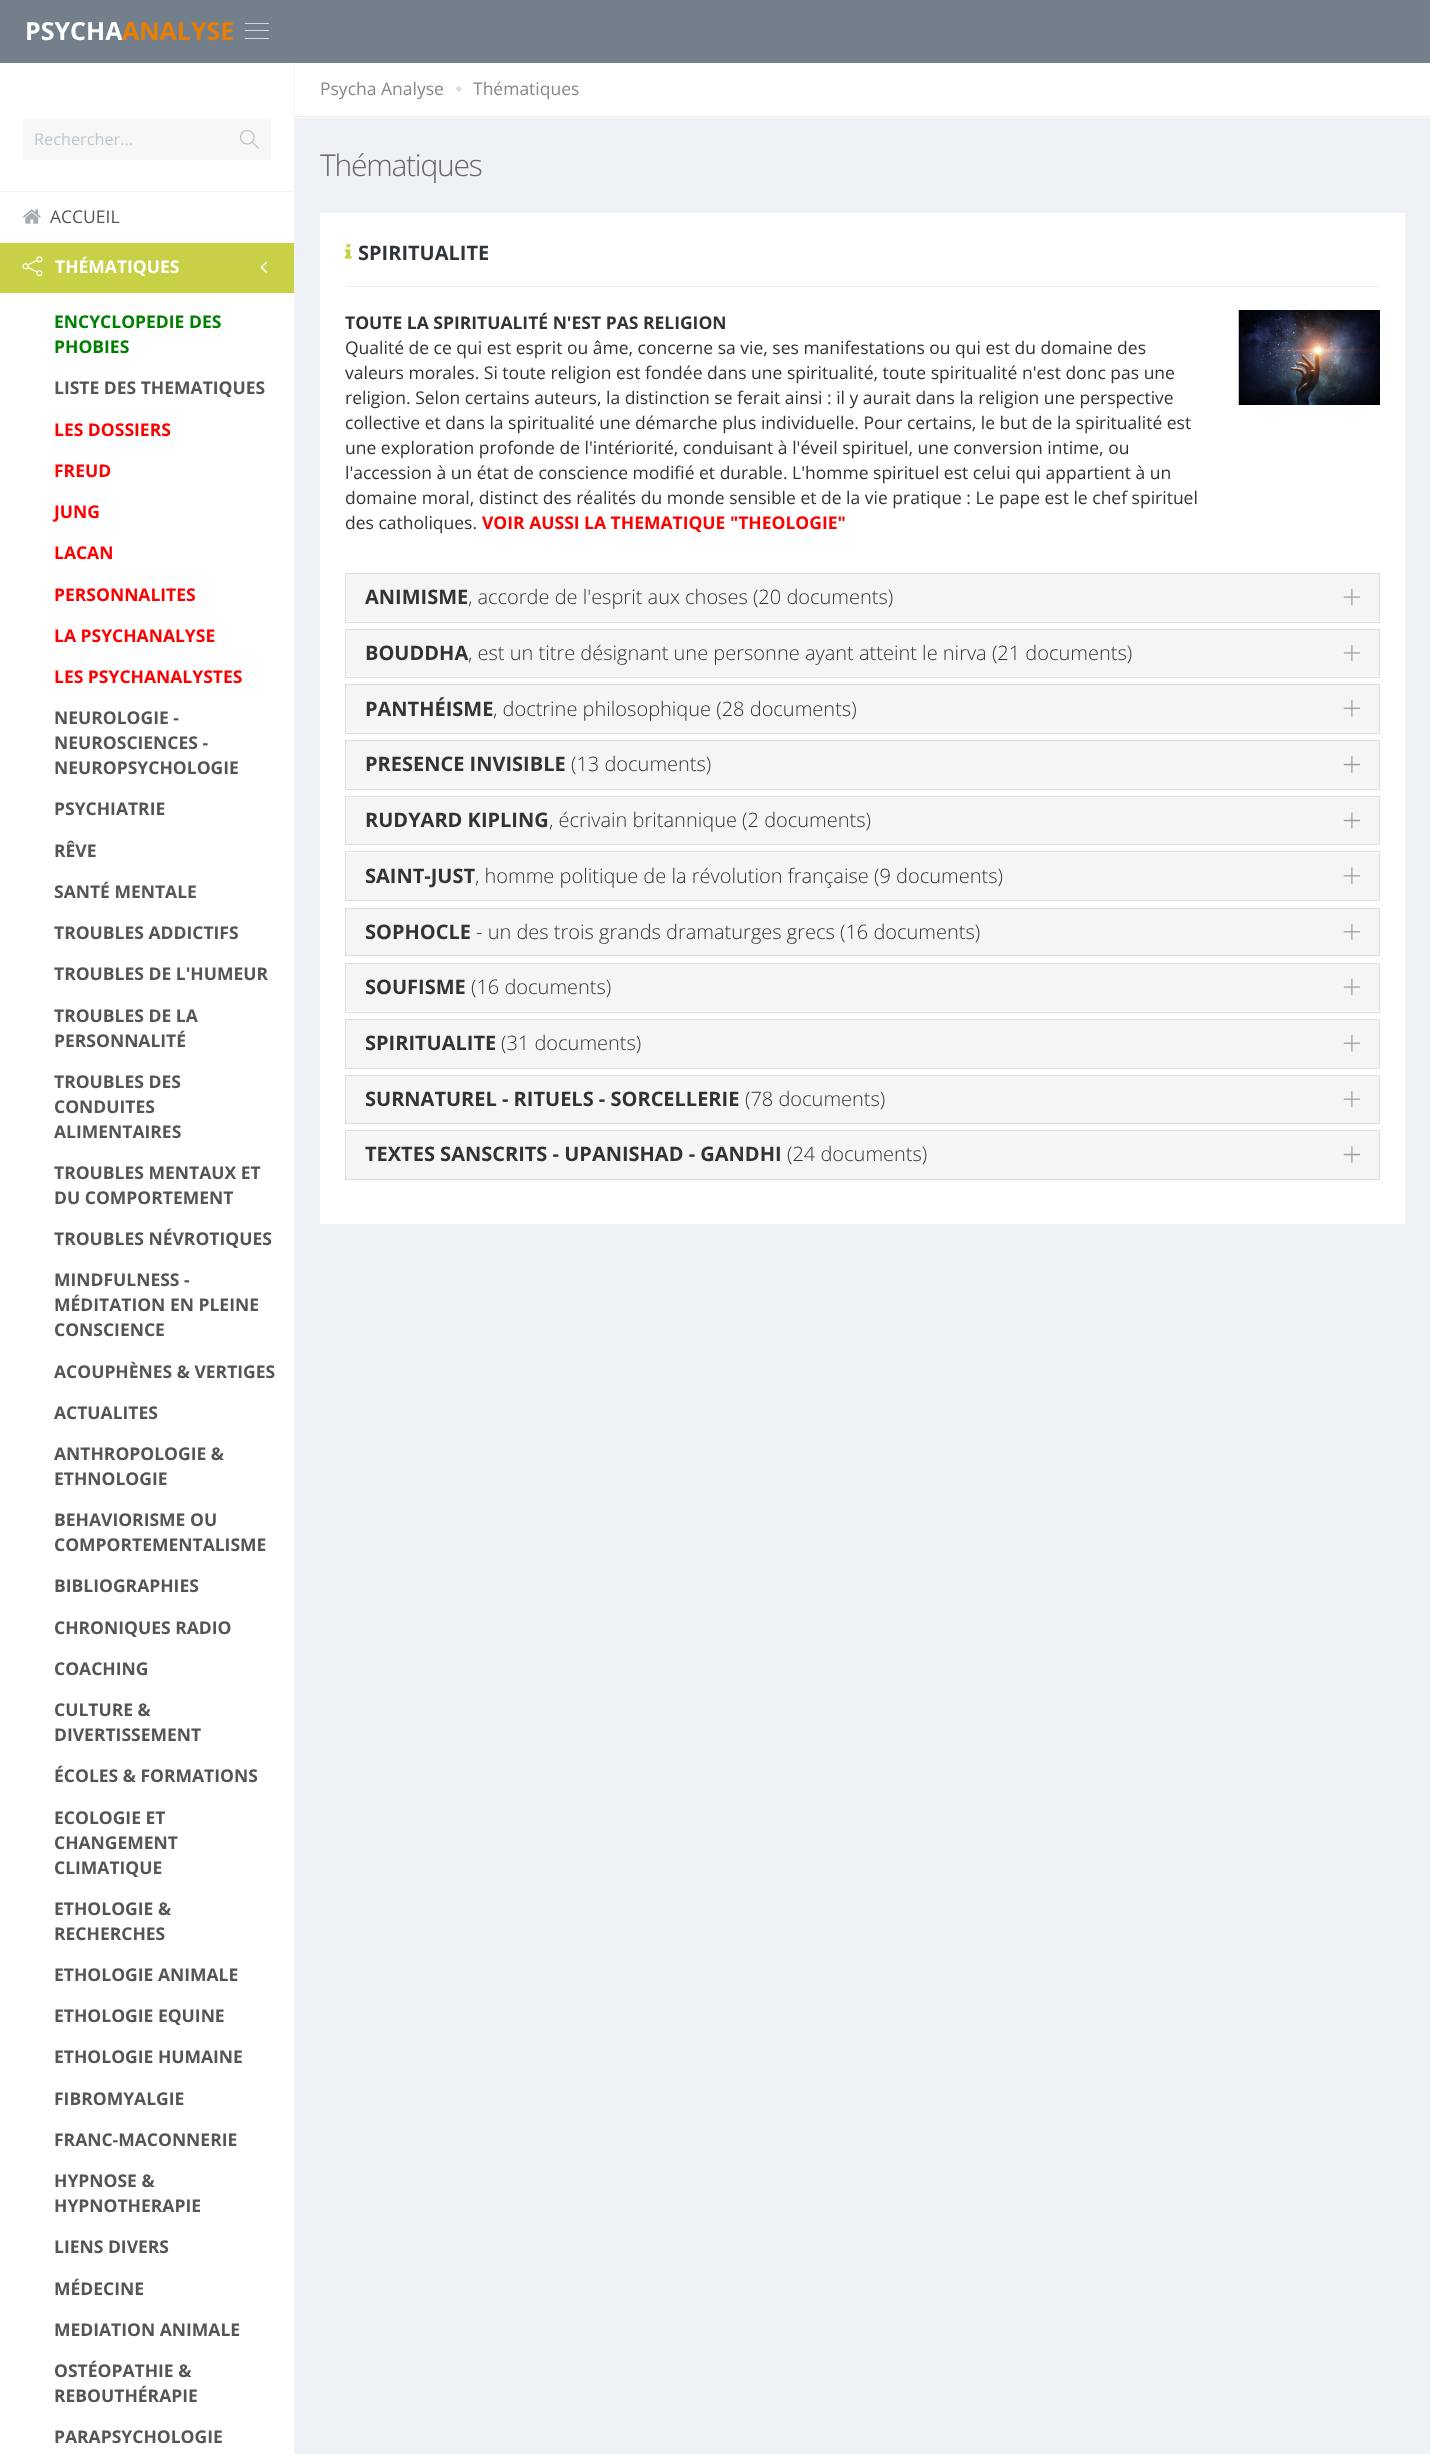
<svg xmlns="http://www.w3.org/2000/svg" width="1430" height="2454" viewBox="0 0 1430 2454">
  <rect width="100%" height="100%" fill="#fff"/>
  <path d="M0 0h1430v63H0z" fill="#747f8c"/>
  <path d="M245 30h24v1H245z" fill="#d5d9dd"/>
  <path d="M245 23h24v1H245z" fill="#d5d9dd"/>
  <path d="M245 38h24v1H245z" fill="#d5d9dd"/>
  <path d="M23 119h248v41H23z" fill="#f7f7f7"/>
  <image x="240" y="130" width="19" height="19" href="img/1.png"/>
  <path d="M0 191h294v1H0z" fill="#f0f5f7"/>
  <image x="22" y="209" width="19" height="15" href="img/2.png"/>
  <path d="M0 243h294v50H0z" fill="#c8d046"/>
  <image x="22" y="256" width="21" height="21" href="img/3.png"/>
  <image x="260" y="261" width="7" height="12" href="img/4.png"/>
  <path d="M295 118h1135v2336H295z" fill="#eef1f5"/>
  <path d="M294 63h1v2391H294z" fill="#f0f5f7"/>
  <path d="M295 116h1135v1H295z" fill="#e7ecf1"/>
  <image x="456" y="86" width="6" height="6" href="img/5.png"/>
  <path d="M320 213h1085v1011H320z" fill="#fff"/>
  <path d="M345 286h1035v1H345z" fill="#eee"/>
  <image x="345" y="244" width="7" height="15" href="img/6.png"/>
  <image x="1238" y="310" width="142" height="95" href="img/7.png"/>
  <path d="M345.5 573.5h1034v49H345.5z" fill="none" stroke="#ddd"/>
  <path d="M346 574h1033v47H346z" fill="#f5f5f5"/>
  <image x="1343" y="588" width="17" height="18" href="img/8.png"/>
  <path d="M345.5 629.5h1034v48H345.5z" fill="none" stroke="#ddd"/>
  <path d="M346 630h1033v46H346z" fill="#f5f5f5"/>
  <image x="1343" y="645" width="17" height="16" href="img/9.png"/>
  <path d="M345.5 684.5h1034v49H345.5z" fill="none" stroke="#ddd"/>
  <path d="M346 685h1033v48H346z" fill="#f5f5f5"/>
  <image x="1343" y="700" width="17" height="17" href="img/10.png"/>
  <path d="M345.5 740.5h1034v49H345.5z" fill="none" stroke="#ddd"/>
  <path d="M346 741h1033v48H346z" fill="#f5f5f5"/>
  <image x="1343" y="756" width="17" height="17" href="img/11.png"/>
  <path d="M345.5 796.5h1034v48H345.5z" fill="none" stroke="#ddd"/>
  <path d="M346 798h1033v46H346z" fill="#f5f5f5"/>
  <image x="1343" y="812" width="17" height="17" href="img/12.png"/>
  <path d="M345.5 851.5h1034v49H345.5z" fill="none" stroke="#ddd"/>
  <path d="M346 853h1033v47H346z" fill="#f5f5f5"/>
  <image x="1343" y="867" width="17" height="18" href="img/13.png"/>
  <path d="M345.5 908.5h1034v47H345.5z" fill="none" stroke="#ddd"/>
  <path d="M346 909h1033v46H346z" fill="#f5f5f5"/>
  <image x="1343" y="923" width="17" height="17" href="img/14.png"/>
  <path d="M345.5 963.5h1034v49H345.5z" fill="none" stroke="#ddd"/>
  <path d="M346 964h1033v47H346z" fill="#f5f5f5"/>
  <image x="1343" y="978" width="17" height="18" href="img/8.png"/>
  <path d="M345.5 1019.5h1034v49H345.5z" fill="none" stroke="#ddd"/>
  <path d="M346 1020h1033v48H346z" fill="#f5f5f5"/>
  <image x="1343" y="1035" width="17" height="17" href="img/10.png"/>
  <path d="M345.5 1075.5h1034v48H345.5z" fill="none" stroke="#ddd"/>
  <path d="M346 1076h1033v47H346z" fill="#f5f5f5"/>
  <image x="1343" y="1091" width="17" height="17" href="img/15.png"/>
  <path d="M345.5 1130.5h1034v49H345.5z" fill="none" stroke="#ddd"/>
  <path d="M346 1131h1033v48H346z" fill="#f5f5f5"/>
  <image x="1343" y="1146" width="17" height="17" href="img/11.png"/>
  <text x="25" y="40" font-family="Open Sans" font-size="25" font-weight="bold" fill="#fff">PSYCHA</text>
  <text x="122" y="40" font-family="Open Sans" font-size="25" font-weight="bold" fill="#e87e04">ANALYSE</text>
  <text x="34" y="145" font-family="Open Sans" font-size="16.25" fill="#bec8cf">Rechercher...</text>
  <text x="50" y="223" font-family="Open Sans" font-size="17.5" fill="#555">ACCUEIL</text>
  <text x="55" y="273" font-family="Open Sans" font-size="17.5" font-weight="bold" fill="#fff">THÉMATIQUES</text>
  <g font-family="Open Sans" font-size="17.5" font-weight="bold" fill="#008000">
    <text x="54" y="328">ENCYCLOPEDIE DES</text>
    <text x="54" y="353">PHOBIES</text>
  </g>
  <text x="54" y="394" font-family="Open Sans" font-size="17.5" font-weight="bold" fill="#555">LISTE DES THEMATIQUES</text>
  <g font-family="Open Sans" font-size="17.5" font-weight="bold" fill="#f00">
    <text x="54" y="436">LES DOSSIERS</text>
    <text x="54" y="477">FREUD</text>
    <text x="54" y="518">JUNG</text>
    <text x="54" y="559">LACAN</text>
    <text x="54" y="601">PERSONNALITES</text>
    <text x="54" y="642">LA PSYCHANALYSE</text>
    <text x="54" y="683">LES PSYCHANALYSTES</text>
  </g>
  <g font-family="Open Sans" font-size="17.5" font-weight="bold" fill="#555">
    <text x="54" y="724">NEUROLOGIE -</text>
    <text x="54" y="749">NEUROSCIENCES -</text>
    <text x="54" y="774">NEUROPSYCHOLOGIE</text>
    <text x="54" y="815">PSYCHIATRIE</text>
    <text x="54" y="857">RÊVE</text>
    <text x="54" y="898">SANTÉ MENTALE</text>
    <text x="54" y="939">TROUBLES ADDICTIFS</text>
    <text x="54" y="980">TROUBLES DE L'HUMEUR</text>
    <text x="54" y="1022">TROUBLES DE LA</text>
    <text x="54" y="1047">PERSONNALITÉ</text>
    <text x="54" y="1088">TROUBLES DES</text>
    <text x="54" y="1113">CONDUITES</text>
    <text x="54" y="1138">ALIMENTAIRES</text>
    <text x="54" y="1179">TROUBLES MENTAUX ET</text>
    <text x="54" y="1204">DU COMPORTEMENT</text>
    <text x="54" y="1245">TROUBLES NÉVROTIQUES</text>
    <text x="54" y="1286">MINDFULNESS -</text>
    <text x="54" y="1311">MÉDITATION EN PLEINE</text>
    <text x="54" y="1336">CONSCIENCE</text>
    <text x="54" y="1378">ACOUPHÈNES &amp; VERTIGES</text>
    <text x="54" y="1419">ACTUALITES</text>
    <text x="54" y="1460">ANTHROPOLOGIE &amp;</text>
    <text x="54" y="1485">ETHNOLOGIE</text>
    <text x="54" y="1526">BEHAVIORISME OU</text>
    <text x="54" y="1551">COMPORTEMENTALISME</text>
    <text x="54" y="1592">BIBLIOGRAPHIES</text>
    <text x="54" y="1634">CHRONIQUES RADIO</text>
    <text x="54" y="1675">COACHING</text>
    <text x="54" y="1716">CULTURE &amp;</text>
    <text x="54" y="1741">DIVERTISSEMENT</text>
    <text x="54" y="1782">ÉCOLES &amp; FORMATIONS</text>
    <text x="54" y="1824">ECOLOGIE ET</text>
    <text x="54" y="1849">CHANGEMENT</text>
    <text x="54" y="1874">CLIMATIQUE</text>
    <text x="54" y="1915">ETHOLOGIE &amp;</text>
    <text x="54" y="1940">RECHERCHES</text>
    <text x="54" y="1981">ETHOLOGIE ANIMALE</text>
    <text x="54" y="2022">ETHOLOGIE EQUINE</text>
    <text x="54" y="2063">ETHOLOGIE HUMAINE</text>
    <text x="54" y="2105">FIBROMYALGIE</text>
    <text x="54" y="2146">FRANC-MACONNERIE</text>
    <text x="54" y="2187">HYPNOSE &amp;</text>
    <text x="54" y="2212">HYPNOTHERAPIE</text>
    <text x="54" y="2253">LIENS DIVERS</text>
    <text x="54" y="2295">MÉDECINE</text>
    <text x="54" y="2336">MEDIATION ANIMALE</text>
    <text x="54" y="2377">OSTÉOPATHIE &amp;</text>
    <text x="54" y="2402">REBOUTHÉRAPIE</text>
    <text x="54" y="2443">PARAPSYCHOLOGIE</text>
  </g>
  <g font-family="Open Sans" font-size="17.5" fill="#888">
    <text x="320" y="95">Psycha Analyse</text>
    <text x="473" y="95">Thématiques</text>
  </g>
  <text x="320" y="176" font-family="Open Sans" font-size="30" font-weight="300" letter-spacing="-1.25" fill="#666">Thématiques</text>
  <text x="358" y="260" font-family="Open Sans" font-size="20" font-weight="bold" fill="#2f353b">SPIRITUALITE</text>
  <text x="345" y="329" font-family="Open Sans" font-size="17.5" font-weight="bold" fill="#333">TOUTE LA SPIRITUALITÉ N'EST PAS RELIGION</text>
  <g font-family="Open Sans" font-size="17.5" fill="#333">
    <text x="345" y="354">Qualité de ce qui est esprit ou âme, concerne sa vie, ses manifestations ou qui est du domaine des</text>
    <text x="345" y="379">valeurs morales. Si toute religion est fondée dans une spiritualité, toute spiritualité n'est donc pas une</text>
    <text x="345" y="404">religion. Selon certains auteurs, la distinction se ferait ainsi : il y aurait dans la religion une perspective</text>
    <text x="345" y="429">collective et dans la spiritualité une démarche plus individuelle. Pour certains, le but de la spiritualité est</text>
    <text x="345" y="454">une exploration profonde de l'intériorité, conduisant à l'éveil spirituel, une conversion intime, ou</text>
    <text x="345" y="479">l'accession à un état de conscience modifié et durable. L'homme spirituel est celui qui appartient à un</text>
    <text x="345" y="504">domaine moral, distinct des réalités du monde sensible et de la vie pratique : Le pape est le chef spirituel</text>
    <text x="345" y="529">des catholiques.</text>
  </g>
  <text x="482" y="529" font-family="Open Sans" font-size="17.5" font-weight="bold" fill="#f00">VOIR AUSSI LA THEMATIQUE "THEOLOGIE"</text>
  <text x="365" y="604" font-family="Open Sans" font-size="20" font-weight="bold" fill="#333">ANIMISME</text>
  <text x="468" y="604" font-family="Open Sans" font-size="20" font-weight="300" fill="#333">, accorde de l'esprit aux choses (20 documents)</text>
  <text x="365" y="660" font-family="Open Sans" font-size="20" font-weight="bold" fill="#333">BOUDDHA</text>
  <text x="468" y="660" font-family="Open Sans" font-size="20" font-weight="300" fill="#333">, est un titre désignant une personne ayant atteint le nirva (21 documents)</text>
  <text x="365" y="716" font-family="Open Sans" font-size="20" font-weight="bold" fill="#333">PANTHÉISME</text>
  <text x="493" y="716" font-family="Open Sans" font-size="20" font-weight="300" fill="#333">, doctrine philosophique (28 documents)</text>
  <text x="365" y="771" font-family="Open Sans" font-size="20" font-weight="bold" fill="#333">PRESENCE INVISIBLE</text>
  <text x="571" y="771" font-family="Open Sans" font-size="20" font-weight="300" fill="#333">(13 documents)</text>
  <text x="365" y="827" font-family="Open Sans" font-size="20" font-weight="bold" fill="#333">RUDYARD KIPLING</text>
  <text x="549" y="827" font-family="Open Sans" font-size="20" font-weight="300" fill="#333">, écrivain britannique (2 documents)</text>
  <text x="365" y="883" font-family="Open Sans" font-size="20" font-weight="bold" fill="#333">SAINT-JUST</text>
  <text x="475" y="883" font-family="Open Sans" font-size="20" font-weight="300" fill="#333">, homme politique de la révolution française (9 documents)</text>
  <text x="365" y="939" font-family="Open Sans" font-size="20" font-weight="bold" fill="#333">SOPHOCLE</text>
  <text x="476" y="939" font-family="Open Sans" font-size="20" font-weight="300" fill="#333">- un des trois grands dramaturges grecs (16 documents)</text>
  <text x="365" y="994" font-family="Open Sans" font-size="20" font-weight="bold" fill="#333">SOUFISME</text>
  <text x="471" y="994" font-family="Open Sans" font-size="20" font-weight="300" fill="#333">(16 documents)</text>
  <text x="365" y="1050" font-family="Open Sans" font-size="20" font-weight="bold" fill="#333">SPIRITUALITE</text>
  <text x="501" y="1050" font-family="Open Sans" font-size="20" font-weight="300" fill="#333">(31 documents)</text>
  <text x="365" y="1106" font-family="Open Sans" font-size="20" font-weight="bold" fill="#333">SURNATUREL - RITUELS - SORCELLERIE</text>
  <text x="745" y="1106" font-family="Open Sans" font-size="20" font-weight="300" fill="#333">(78 documents)</text>
  <text x="365" y="1161" font-family="Open Sans" font-size="20" font-weight="bold" fill="#333">TEXTES SANSCRITS - UPANISHAD - GANDHI</text>
  <text x="787" y="1161" font-family="Open Sans" font-size="20" font-weight="300" fill="#333">(24 documents)</text>
</svg>
